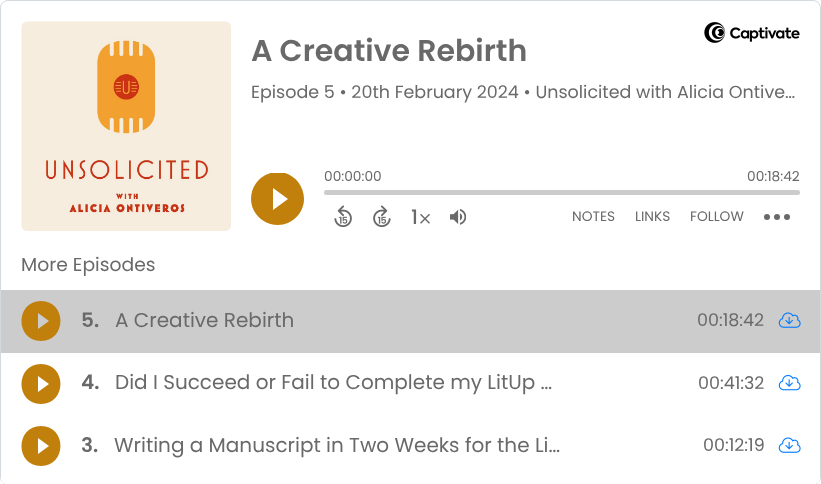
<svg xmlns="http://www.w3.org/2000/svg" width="821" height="484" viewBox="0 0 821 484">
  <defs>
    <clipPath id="clip1"><path d="M251 173h53v52H251z"/></clipPath>
  </defs>
  <rect width="100%" height="100%" fill="#fff"/>
  <rect x="0.5" y="0.5" width="820" height="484" rx="7.5" fill="none" stroke="#d4d9dd"/>
  <image x="21" y="21" width="210" height="210" href="img/1.png"/>
  <image x="704" y="22" width="96" height="21" href="img/2.png"/>
  <g clip-path="url(#clip1)">
    <path d="M278 225C292 225 304 213 304 199C304 184 292 172 278 172C263 172 251 184 251 199C251 213 263 225 278 225ZM273 210L288 199L273 188Z" fill="#c1800b" fill-rule="evenodd"/>
  </g>
  <rect x="324" y="190" width="476" height="5" rx="2.5" fill="#ccc"/>
  <image x="334" y="205" width="18" height="23" href="img/3.png"/>
  <image x="373" y="205" width="18" height="23" href="img/4.png"/>
  <image x="420" y="214" width="10" height="10" href="img/5.png"/>
  <image x="450" y="209" width="16" height="16" href="img/6.png"/>
  <circle cx="787" cy="217" r="3" fill="#696969"/>
  <circle cx="777" cy="217" r="3" fill="#696969"/>
  <circle cx="767" cy="217" r="3" fill="#696969"/>
  <path d="M1 251H820V478C820 481.5 817.5 484 814 484H7C3.5 484 1 481.5 1 478Z" fill="#fff"/>
  <path d="M1 290h819v63H1z" fill="#ccc"/>
  <path d="M41 341C67 341 67 301 41 301C15 301 15 341 41 341ZM38 329L49 321L38 313Z" fill="#c1800b" fill-rule="evenodd"/>
  <image x="778" y="312" width="23" height="16" href="img/7.png"/>
  <path d="M41 404C67 404 67 364 41 364C15 364 15 404 41 404ZM38 392L49 384L38 376Z" fill="#c1800b" fill-rule="evenodd"/>
  <image x="778" y="375" width="23" height="16" href="img/8.png"/>
  <path d="M41 466C67 466 67 426 41 426C15 426 15 466 41 466ZM38 454L49 446L38 438Z" fill="#c1800b" fill-rule="evenodd"/>
  <image x="778" y="437" width="23" height="16" href="img/9.png"/>
  <text x="251" y="61" font-family="Poppins" font-size="30" font-weight="600" fill="#696969">A Creative Rebirth</text>
  <text x="251" y="98" font-family="Poppins" font-size="17.5" fill="#696969">Episode 5 • 20th February 2024 • Unsolicited with Alicia Ontive…</text>
  <g font-family="Poppins" font-size="13.75" fill="#696969">
    <text x="324" y="181">00:00:00</text>
    <text x="747" y="181">00:18:42</text>
  </g>
  <text x="411" y="224" font-family="Poppins" font-size="20" font-weight="500" fill="#696969">1</text>
  <g font-family="Poppins" font-size="13.75" fill="#696969">
    <text x="572" y="221">NOTES</text>
    <text x="635" y="221">LINKS</text>
    <text x="690" y="221">FOLLOW</text>
  </g>
  <text x="21" y="271" font-family="Poppins" font-size="18.75" fill="#696969">More Episodes</text>
  <text x="81" y="327" font-family="Poppins" font-size="20" font-weight="600" fill="#696969">5.</text>
  <text x="115" y="327" font-family="Poppins" font-size="20" fill="#696969">A Creative Rebirth</text>
  <text x="697" y="326" font-family="Poppins" font-size="17.5" fill="#696969">00:18:42</text>
  <text x="81" y="389" font-family="Poppins" font-size="20" font-weight="600" fill="#696969">4.</text>
  <text x="115" y="389" font-family="Poppins" font-size="20" fill="#696969">Did I Succeed or Fail to Complete my LitUp …</text>
  <text x="698" y="389" font-family="Poppins" font-size="17.5" fill="#696969">00:41:32</text>
  <text x="81" y="452" font-family="Poppins" font-size="20" font-weight="600" fill="#696969">3.</text>
  <text x="114" y="452" font-family="Poppins" font-size="20" fill="#696969">Writing a Manuscript in Two Weeks for the Li…</text>
  <text x="703" y="451" font-family="Poppins" font-size="17.5" fill="#696969">00:12:19</text>
</svg>
